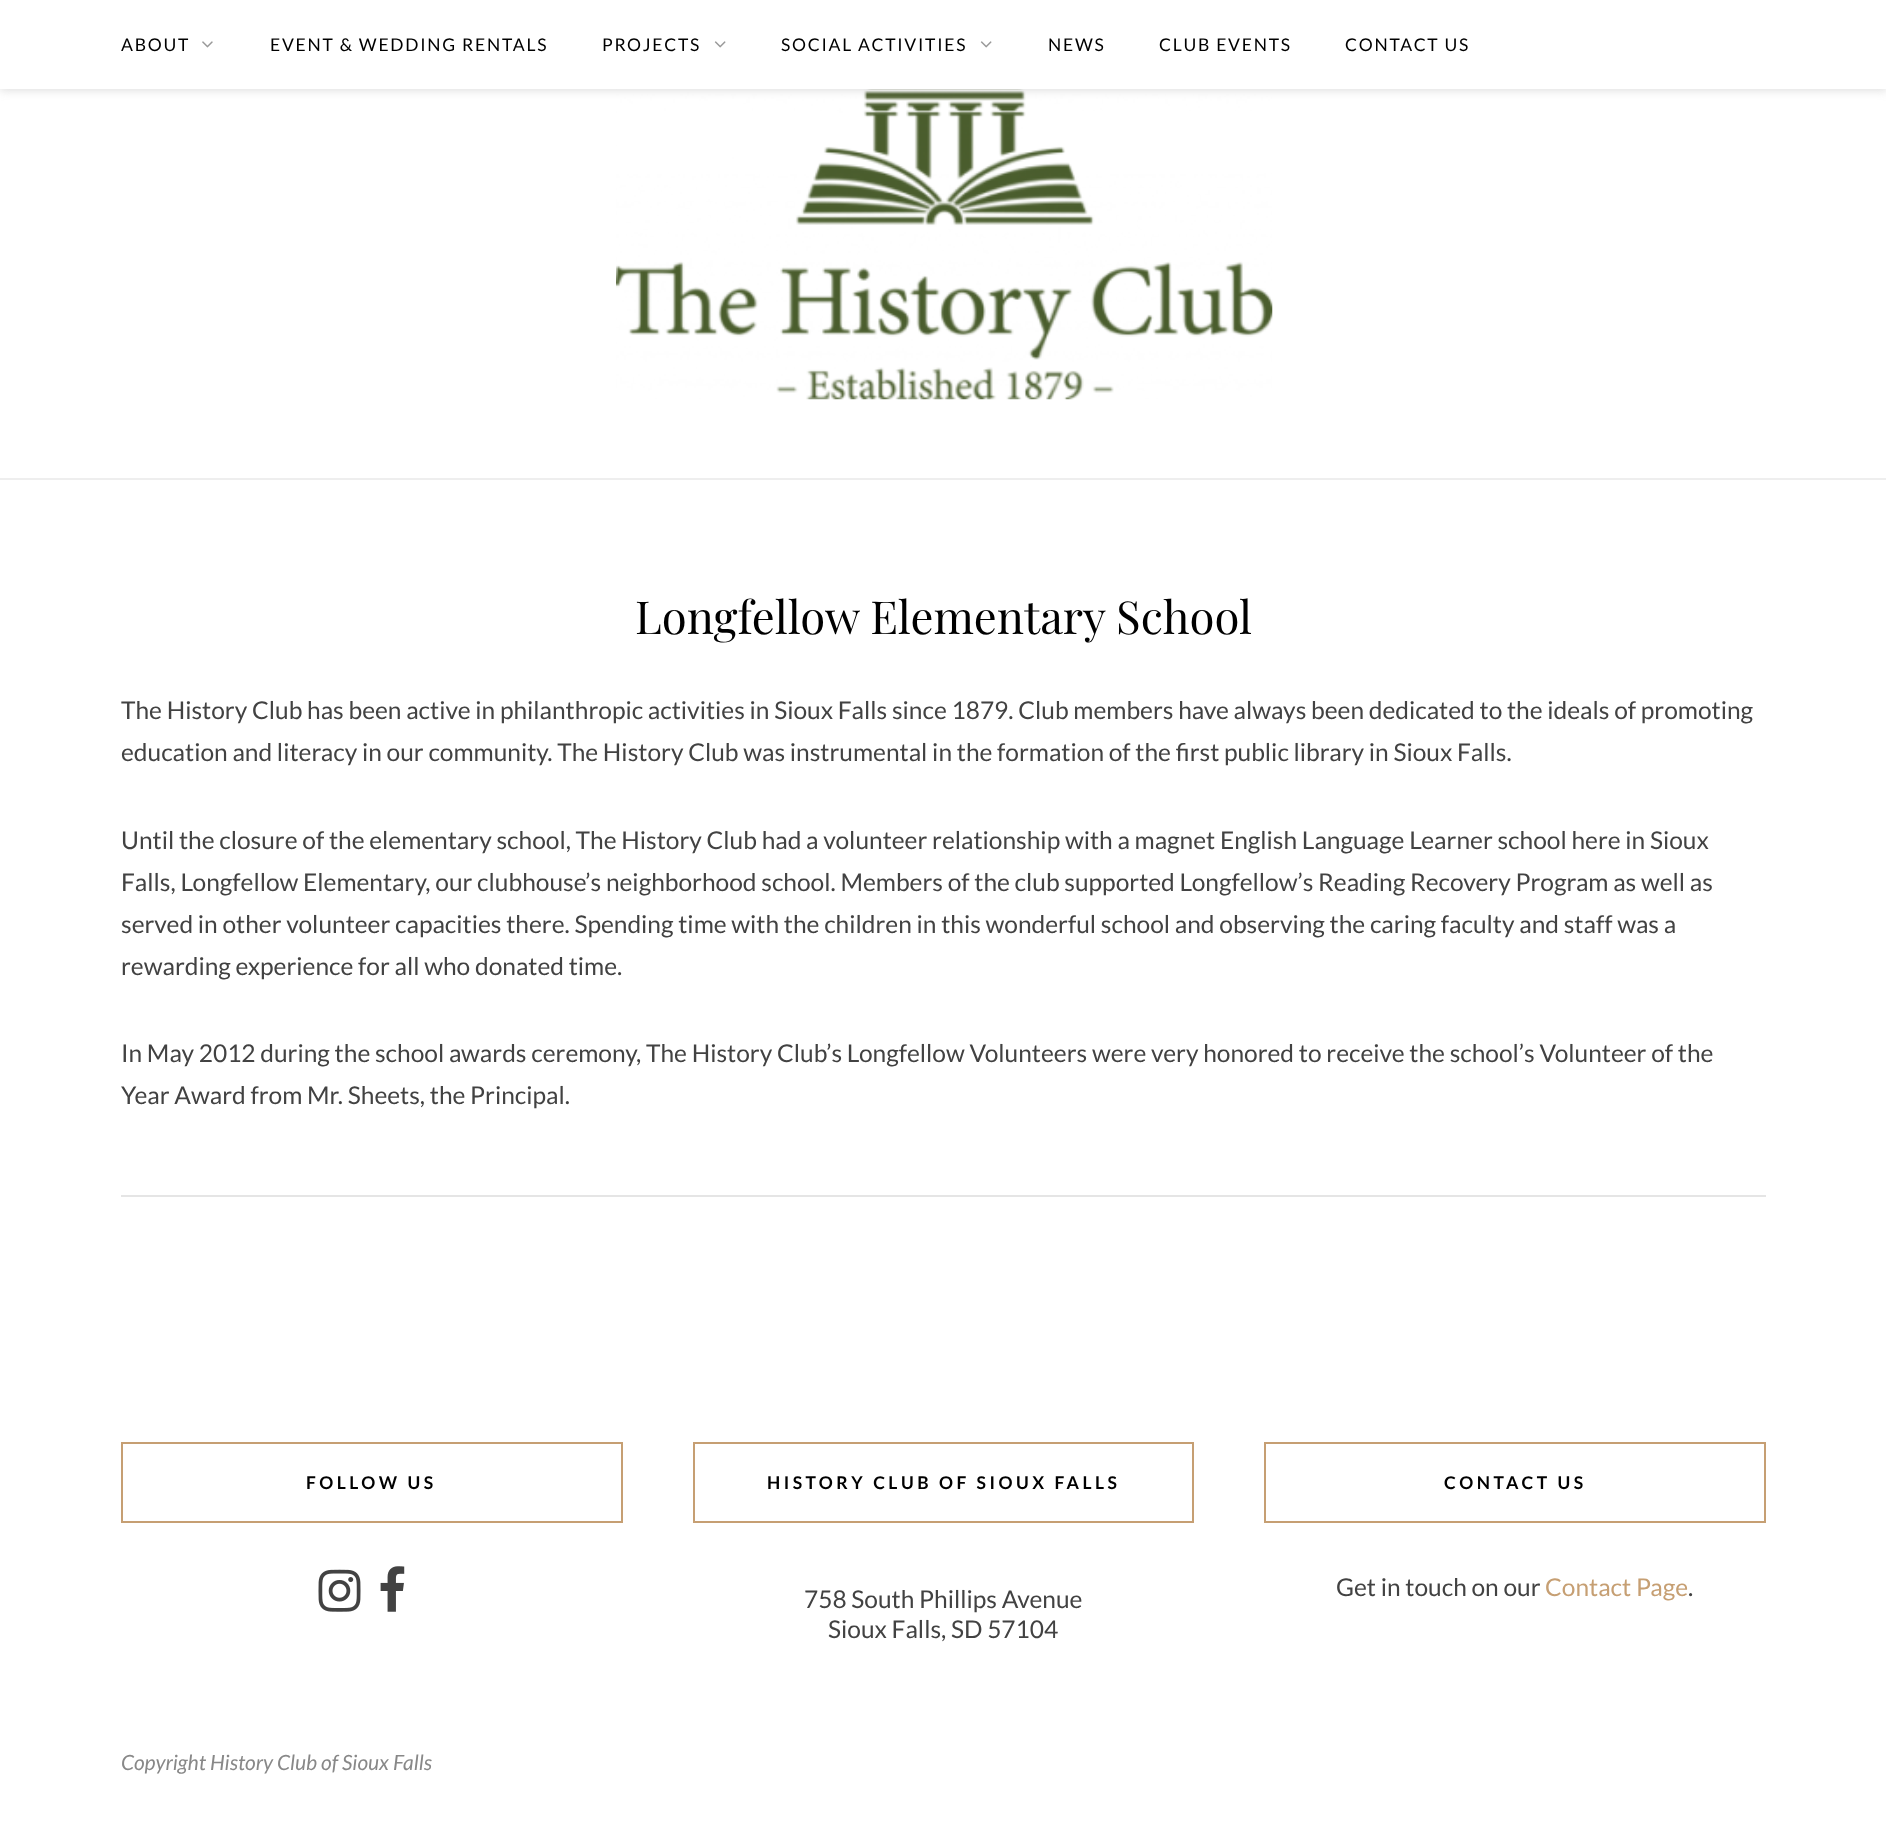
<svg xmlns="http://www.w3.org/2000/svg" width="1886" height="1821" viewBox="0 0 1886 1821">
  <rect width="100%" height="100%" fill="#fff"/>
  <image x="616" y="89" width="657" height="311" href="img/3.png"/>
  <path d="M0 2h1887v89H0z" fill="#bebebe75" filter="blur(4.5px)"/>
  <path d="M0 0h1886v89H0z" fill="#fff"/>
  <image x="202" y="41" width="11" height="7" href="img/1.png"/>
  <image x="714" y="41" width="12" height="7" href="img/2.png"/>
  <image x="980" y="41" width="12" height="7" href="img/2.png"/>
  <path d="M0 478h1886v2H0z" fill="#eee"/>
  <path d="M121 1195h1645v2H121z" fill="#e5e5e5"/>
  <path d="M122 1443h500v79H122z" fill="none" stroke="#c69f73" stroke-width="2"/>
  <image x="318" y="1569" width="43" height="43" href="img/4.png"/>
  <image x="380" y="1566" width="25" height="46" href="img/5.png"/>
  <path d="M694 1443h499v79H694z" fill="none" stroke="#c69f73" stroke-width="2"/>
  <path d="M1265 1443h500v79H1265z" fill="none" stroke="#c69f73" stroke-width="2"/>
  <g font-family="Lato" font-size="17.5" letter-spacing="1.75" fill="#000">
    <text x="121" y="51">ABOUT</text>
    <text x="270" y="51">EVENT &amp; WEDDING RENTALS</text>
    <text x="602" y="51">PROJECTS</text>
    <text x="781" y="51">SOCIAL ACTIVITIES</text>
    <text x="1048" y="51">NEWS</text>
    <text x="1159" y="51">CLUB EVENTS</text>
    <text x="1345" y="51">CONTACT US</text>
  </g>
  <text x="635" y="634" font-family="Playfair Display" font-size="45.5" fill="#000">Longfellow Elementary School</text>
  <g font-family="Lato" font-size="24.5" fill="#424242">
    <text x="121" y="719">The History Club has been active in philanthropic activities in Sioux Falls since 1879. Club members have always been dedicated to the ideals of promoting</text>
    <text x="121" y="761">education and literacy in our community. The History Club was instrumental in the formation of the first public library in Sioux Falls.</text>
    <text x="121" y="849">Until the closure of the elementary school, The History Club had a volunteer relationship with a magnet English Language Learner school here in Sioux</text>
    <text x="121" y="891">Falls, Longfellow Elementary, our clubhouse’s neighborhood school. Members of the club supported Longfellow’s Reading Recovery Program as well as</text>
    <text x="121" y="933">served in other volunteer capacities there. Spending time with the children in this wonderful school and observing the caring faculty and staff was a</text>
    <text x="121" y="975">rewarding experience for all who donated time.</text>
    <text x="121" y="1062">In May 2012 during the school awards ceremony, The History Club’s Longfellow Volunteers were very honored to receive the school’s Volunteer of the</text>
    <text x="121" y="1104">Year Award from Mr. Sheets, the Principal.</text>
  </g>
  <g font-family="Lato" font-size="17.5" font-weight="bold" letter-spacing="3.5" fill="#000">
    <text x="306" y="1489">FOLLOW US</text>
    <text x="767" y="1489">HISTORY CLUB OF SIOUX FALLS</text>
  </g>
  <g font-family="Lato" font-size="24.5" fill="#424242">
    <text x="804" y="1608">758 South Phillips Avenue</text>
    <text x="828" y="1638">Sioux Falls, SD 57104</text>
  </g>
  <text x="1444" y="1489" font-family="Lato" font-size="17.5" font-weight="bold" letter-spacing="3.5" fill="#000">CONTACT US</text>
  <text x="1336" y="1596" font-family="Lato" font-size="24.5" fill="#424242">Get in touch on our</text>
  <text x="1545" y="1596" font-family="Lato" font-size="24.5" fill="#c69f73">Contact Page</text>
  <text x="1688" y="1596" font-family="Lato" font-size="24.5" fill="#424242">.</text>
  <text x="121" y="1770" font-family="Lato" font-size="21" font-style="italic" fill="#888">Copyright History Club of Sioux Falls</text>
</svg>
